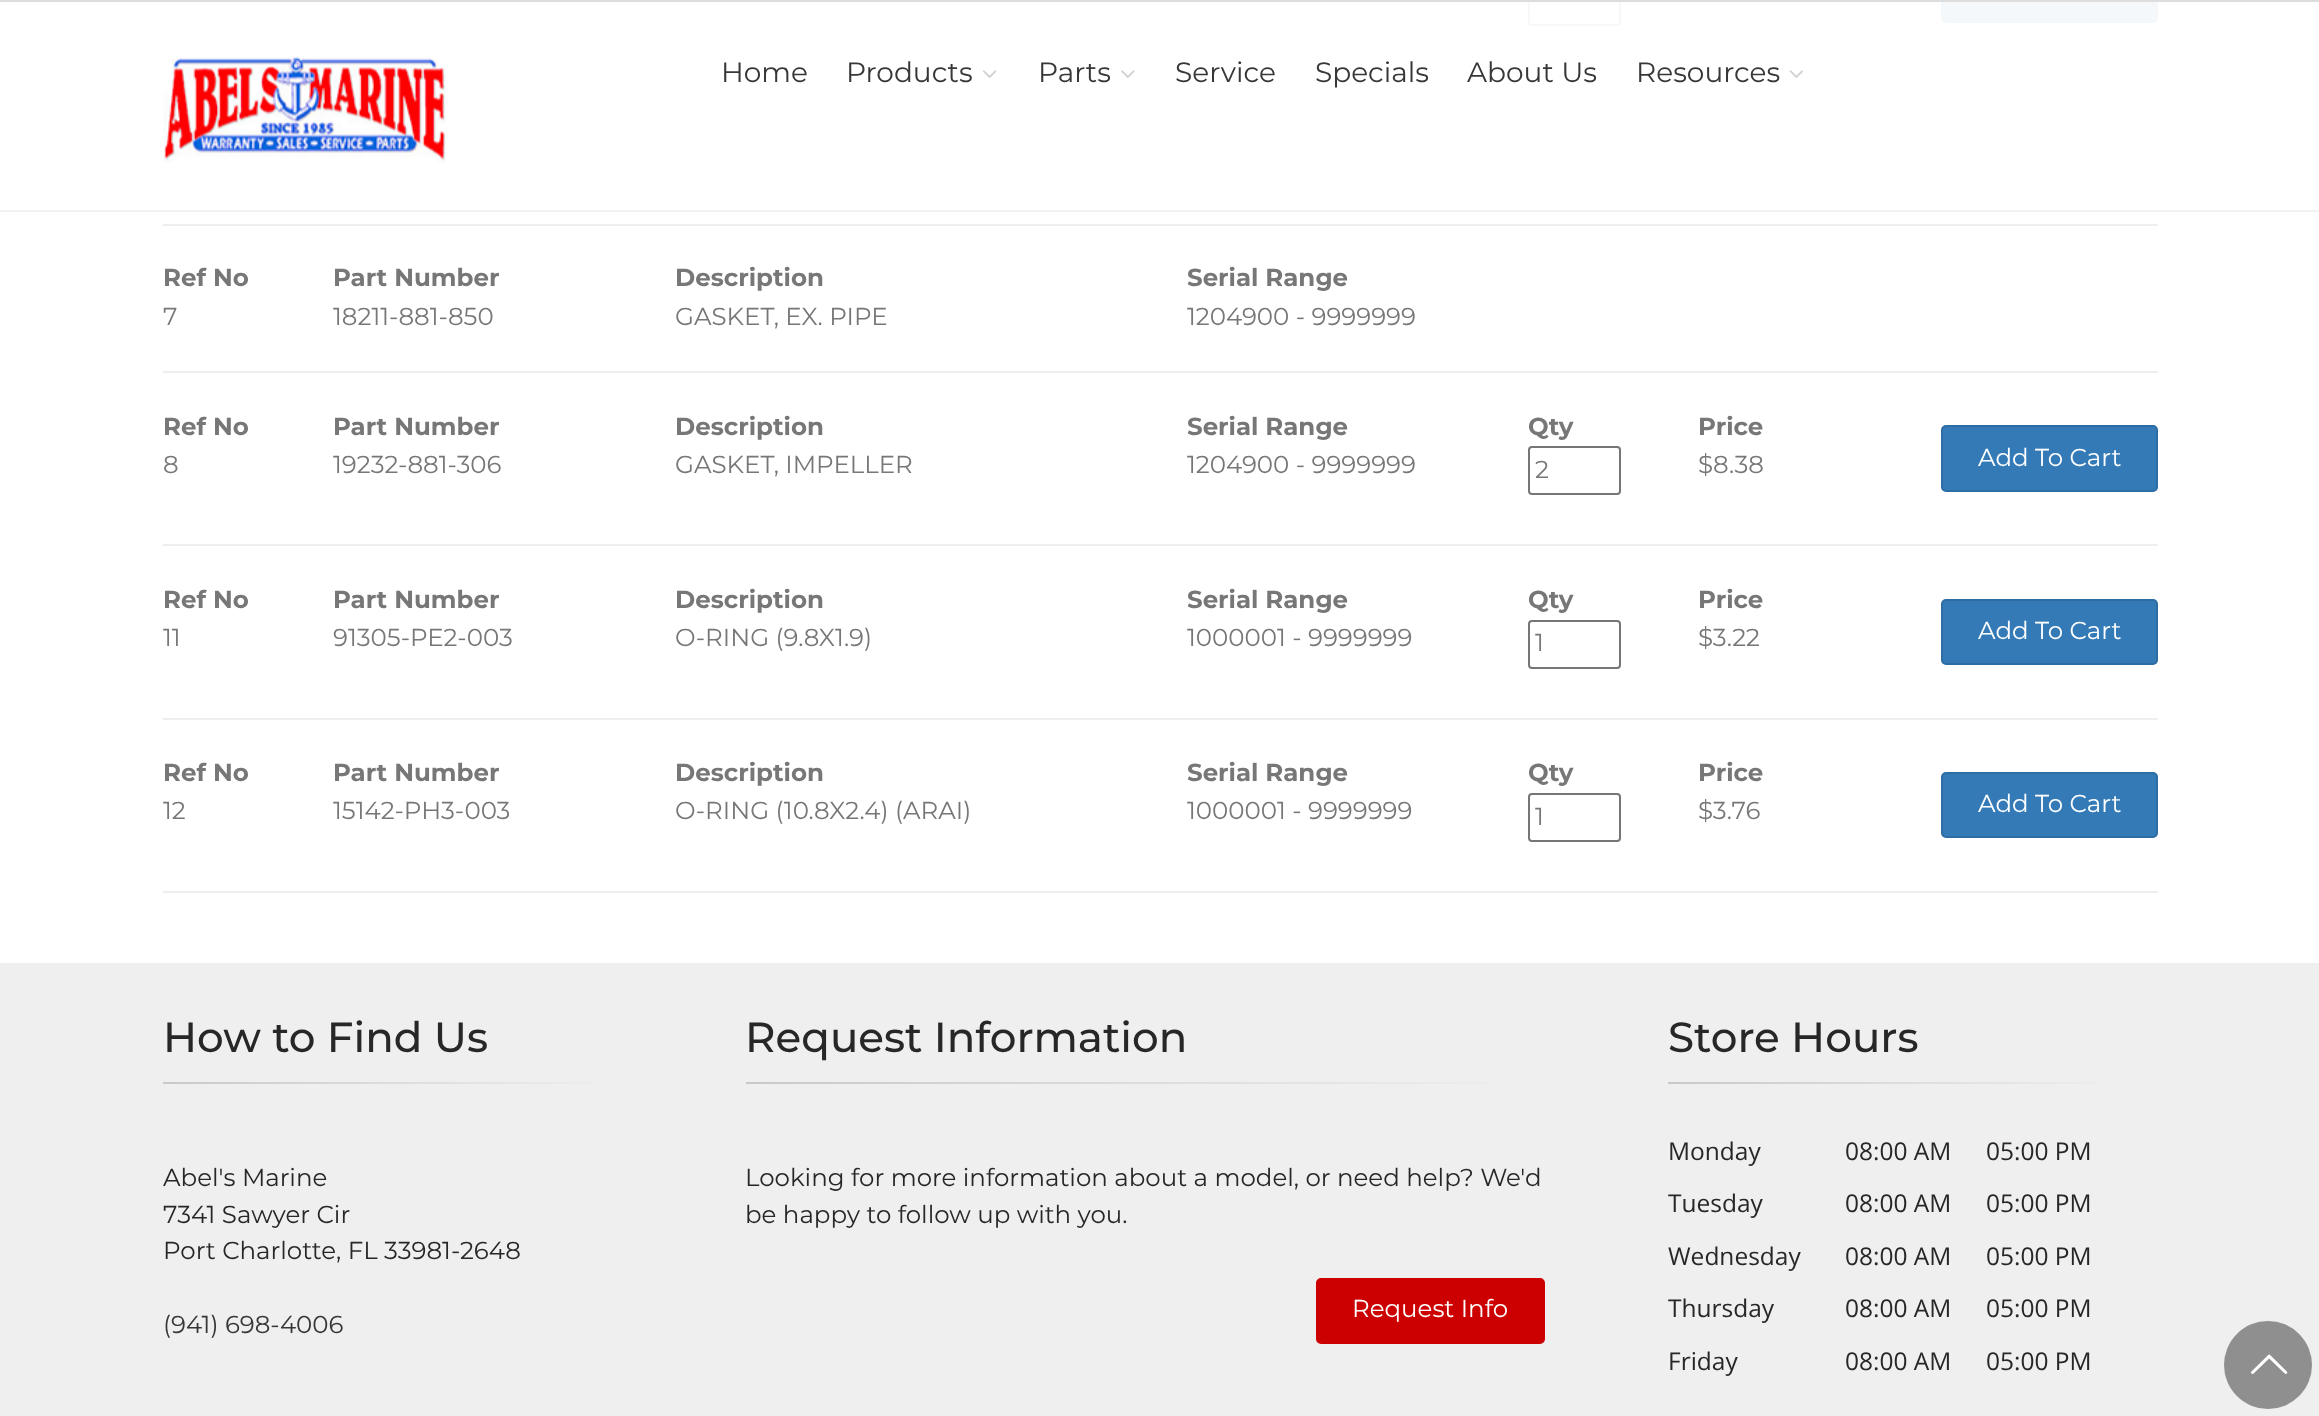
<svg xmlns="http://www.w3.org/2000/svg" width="2319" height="1416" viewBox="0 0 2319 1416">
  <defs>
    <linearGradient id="g1" gradientUnits="userSpaceOnUse" x1="163" y1="1082" x2="623" y2="1082"><stop offset="0" stop-color="#c9c9c9"/><stop offset="1" stop-color="#efefef"/></linearGradient>
    <linearGradient id="g2" gradientUnits="userSpaceOnUse" x1="746" y1="1082" x2="1545" y2="1082"><stop offset="0" stop-color="#c9c9c9"/><stop offset="1" stop-color="#efefef"/></linearGradient>
    <linearGradient id="g3" gradientUnits="userSpaceOnUse" x1="1668" y1="1082" x2="2128" y2="1082"><stop offset="0" stop-color="#c9c9c9"/><stop offset="1" stop-color="#efefef"/></linearGradient>
  </defs>
  <rect width="100%" height="100%" fill="#fff"/>
  <rect x="1529" y="-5" width="91" height="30" rx="3" fill="none" stroke="#f8f8f8" stroke-width="2"/>
  <rect x="1941" y="-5" width="217" height="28" rx="5" fill="#f5f8fb"/>
  <path d="M0 0h2319v2H0z" fill="#ddd"/>
  <path d="M0 210h2319v2H0z" fill="#f1f1f1"/>
  <image x="163" y="57" width="283" height="106" href="img/1.png"/>
  <image x="983" y="70" width="14" height="8" href="img/2.png"/>
  <image x="1121" y="70" width="14" height="8" href="img/3.png"/>
  <image x="1789" y="70" width="14" height="8" href="img/4.png"/>
  <path d="M163 224h1995v2H163z" fill="#eee"/>
  <path d="M163 371h1995v2H163z" fill="#eee"/>
  <rect x="1529" y="447" width="91" height="47" rx="3" fill="none" stroke="#767676" stroke-width="2"/>
  <rect x="1942" y="426" width="215" height="65" rx="4" fill="#337ab7" stroke="#2e6da4" stroke-width="2"/>
  <path d="M163 544h1995v2H163z" fill="#eee"/>
  <rect x="1529" y="621" width="91" height="47" rx="3" fill="none" stroke="#767676" stroke-width="2"/>
  <rect x="1942" y="600" width="215" height="64" rx="4" fill="#337ab7" stroke="#2e6da4" stroke-width="2"/>
  <path d="M163 718h1995v2H163z" fill="#eee"/>
  <rect x="1529" y="794" width="91" height="47" rx="3" fill="none" stroke="#767676" stroke-width="2"/>
  <rect x="1942" y="773" width="215" height="64" rx="4" fill="#337ab7" stroke="#2e6da4" stroke-width="2"/>
  <path d="M163 891h1995v2H163z" fill="#eee"/>
  <path d="M0 963h2319v453H0z" fill="#efefef"/>
  <path d="M163 1082h430v2H163z" fill="url(#g1)"/>
  <path d="M746 1082h746v2H746z" fill="url(#g2)"/>
  <rect x="1317" y="1279" width="227" height="64" rx="4" fill="#c00" stroke="#c00" stroke-width="2"/>
  <path d="M1668 1082h430v2H1668z" fill="url(#g3)"/>
  <circle cx="2268" cy="1365" r="44" fill="#8f8f8f"/>
  <image x="2251" y="1354" width="37" height="20" href="img/5.png"/>
  <g font-family="Montserrat" font-size="28" fill="#373737">
    <text x="721" y="82">Home</text>
    <text x="846" y="82">Products</text>
    <text x="1038" y="82">Parts</text>
    <text x="1175" y="82">Service</text>
    <text x="1315" y="82">Specials</text>
    <text x="1467" y="82">About Us</text>
    <text x="1636" y="82">Resources</text>
  </g>
  <text x="163" y="286" font-family="Montserrat" font-size="24.5" font-weight="bold" fill="#777">Ref No</text>
  <text x="163" y="325" font-family="Montserrat" font-size="24.5" fill="#777">7</text>
  <text x="333" y="286" font-family="Montserrat" font-size="24.5" font-weight="bold" fill="#777">Part Number</text>
  <text x="333" y="325" font-family="Montserrat" font-size="24.5" fill="#777">18211-881-850</text>
  <text x="675" y="286" font-family="Montserrat" font-size="24.5" font-weight="bold" fill="#777">Description</text>
  <text x="675" y="325" font-family="Montserrat" font-size="24.5" fill="#777">GASKET, EX. PIPE</text>
  <text x="1187" y="286" font-family="Montserrat" font-size="24.5" font-weight="bold" fill="#777">Serial Range</text>
  <text x="1187" y="325" font-family="Montserrat" font-size="24.5" fill="#777">1204900 - 9999999</text>
  <text x="163" y="435" font-family="Montserrat" font-size="24.5" font-weight="bold" fill="#777">Ref No</text>
  <text x="163" y="473" font-family="Montserrat" font-size="24.5" fill="#777">8</text>
  <text x="333" y="435" font-family="Montserrat" font-size="24.5" font-weight="bold" fill="#777">Part Number</text>
  <text x="333" y="473" font-family="Montserrat" font-size="24.5" fill="#777">19232-881-306</text>
  <text x="675" y="435" font-family="Montserrat" font-size="24.5" font-weight="bold" fill="#777">Description</text>
  <text x="675" y="473" font-family="Montserrat" font-size="24.5" fill="#777">GASKET, IMPELLER</text>
  <text x="1187" y="435" font-family="Montserrat" font-size="24.5" font-weight="bold" fill="#777">Serial Range</text>
  <text x="1187" y="473" font-family="Montserrat" font-size="24.5" fill="#777">1204900 - 9999999</text>
  <text x="1528" y="435" font-family="Montserrat" font-size="24.5" font-weight="bold" fill="#777">Qty</text>
  <text x="1535" y="478" font-family="Montserrat" font-size="24.5" fill="#777">2</text>
  <text x="1698" y="435" font-family="Montserrat" font-size="24.5" font-weight="bold" fill="#777">Price</text>
  <text x="1698" y="473" font-family="Montserrat" font-size="24.5" fill="#777">$8.38</text>
  <text x="1978" y="466" font-family="Montserrat" font-size="24.5" fill="#fff">Add To Cart</text>
  <text x="163" y="608" font-family="Montserrat" font-size="24.5" font-weight="bold" fill="#777">Ref No</text>
  <text x="163" y="646" font-family="Montserrat" font-size="24.5" fill="#777">11</text>
  <text x="333" y="608" font-family="Montserrat" font-size="24.5" font-weight="bold" fill="#777">Part Number</text>
  <text x="333" y="646" font-family="Montserrat" font-size="24.5" fill="#777">91305-PE2-003</text>
  <text x="675" y="608" font-family="Montserrat" font-size="24.5" font-weight="bold" fill="#777">Description</text>
  <text x="675" y="646" font-family="Montserrat" font-size="24.5" fill="#777">O-RING (9.8X1.9)</text>
  <text x="1187" y="608" font-family="Montserrat" font-size="24.5" font-weight="bold" fill="#777">Serial Range</text>
  <text x="1187" y="646" font-family="Montserrat" font-size="24.5" fill="#777">1000001 - 9999999</text>
  <text x="1528" y="608" font-family="Montserrat" font-size="24.5" font-weight="bold" fill="#777">Qty</text>
  <text x="1535" y="651" font-family="Montserrat" font-size="24.5" fill="#777">1</text>
  <text x="1698" y="608" font-family="Montserrat" font-size="24.5" font-weight="bold" fill="#777">Price</text>
  <text x="1698" y="646" font-family="Montserrat" font-size="24.5" fill="#777">$3.22</text>
  <text x="1978" y="639" font-family="Montserrat" font-size="24.5" fill="#fff">Add To Cart</text>
  <text x="163" y="781" font-family="Montserrat" font-size="24.5" font-weight="bold" fill="#777">Ref No</text>
  <text x="163" y="819" font-family="Montserrat" font-size="24.5" fill="#777">12</text>
  <text x="333" y="781" font-family="Montserrat" font-size="24.5" font-weight="bold" fill="#777">Part Number</text>
  <text x="333" y="819" font-family="Montserrat" font-size="24.5" fill="#777">15142-PH3-003</text>
  <text x="675" y="781" font-family="Montserrat" font-size="24.5" font-weight="bold" fill="#777">Description</text>
  <text x="675" y="819" font-family="Montserrat" font-size="24.5" fill="#777">O-RING (10.8X2.4) (ARAI)</text>
  <text x="1187" y="781" font-family="Montserrat" font-size="24.5" font-weight="bold" fill="#777">Serial Range</text>
  <text x="1187" y="819" font-family="Montserrat" font-size="24.5" fill="#777">1000001 - 9999999</text>
  <text x="1528" y="781" font-family="Montserrat" font-size="24.5" font-weight="bold" fill="#777">Qty</text>
  <text x="1535" y="825" font-family="Montserrat" font-size="24.5" fill="#777">1</text>
  <text x="1698" y="781" font-family="Montserrat" font-size="24.5" font-weight="bold" fill="#777">Price</text>
  <text x="1698" y="819" font-family="Montserrat" font-size="24.5" fill="#777">$3.76</text>
  <text x="1978" y="812" font-family="Montserrat" font-size="24.5" fill="#fff">Add To Cart</text>
  <text x="163" y="1052" font-family="Montserrat" font-size="42" font-weight="500" fill="#272727">How to Find Us</text>
  <g font-family="Montserrat" font-size="24.5" fill="#272727">
    <text x="163" y="1186">Abel's Marine</text>
    <text x="163" y="1223">7341 Sawyer Cir</text>
    <text x="163" y="1259">Port Charlotte, FL 33981-2648</text>
  </g>
  <text x="163" y="1333" font-family="Montserrat" font-size="24.5" fill="#373737">(941) 698-4006</text>
  <text x="745" y="1052" font-family="Montserrat" font-size="42" font-weight="500" fill="#272727">Request Information</text>
  <g font-family="Montserrat" font-size="24.5" fill="#272727">
    <text x="745" y="1186">Looking for more information about a model, or need help? We'd</text>
    <text x="745" y="1223">be happy to follow up with you.</text>
  </g>
  <text x="1352" y="1317" font-family="Montserrat" font-size="24.5" fill="#fff">Request Info</text>
  <text x="1668" y="1052" font-family="Montserrat" font-size="42" font-weight="500" fill="#272727">Store Hours</text>
  <g font-family="Open Sans" font-size="24.5" fill="#272727">
    <text x="1668" y="1160">Monday</text>
    <text x="1845" y="1160">08:00 AM</text>
    <text x="1986" y="1160">05:00 PM</text>
    <text x="1668" y="1212">Tuesday</text>
    <text x="1845" y="1212">08:00 AM</text>
    <text x="1986" y="1212">05:00 PM</text>
    <text x="1668" y="1265">Wednesday</text>
    <text x="1845" y="1265">08:00 AM</text>
    <text x="1986" y="1265">05:00 PM</text>
    <text x="1668" y="1317">Thursday</text>
    <text x="1845" y="1317">08:00 AM</text>
    <text x="1986" y="1317">05:00 PM</text>
    <text x="1668" y="1370">Friday</text>
    <text x="1845" y="1370">08:00 AM</text>
    <text x="1986" y="1370">05:00 PM</text>
  </g>
</svg>
